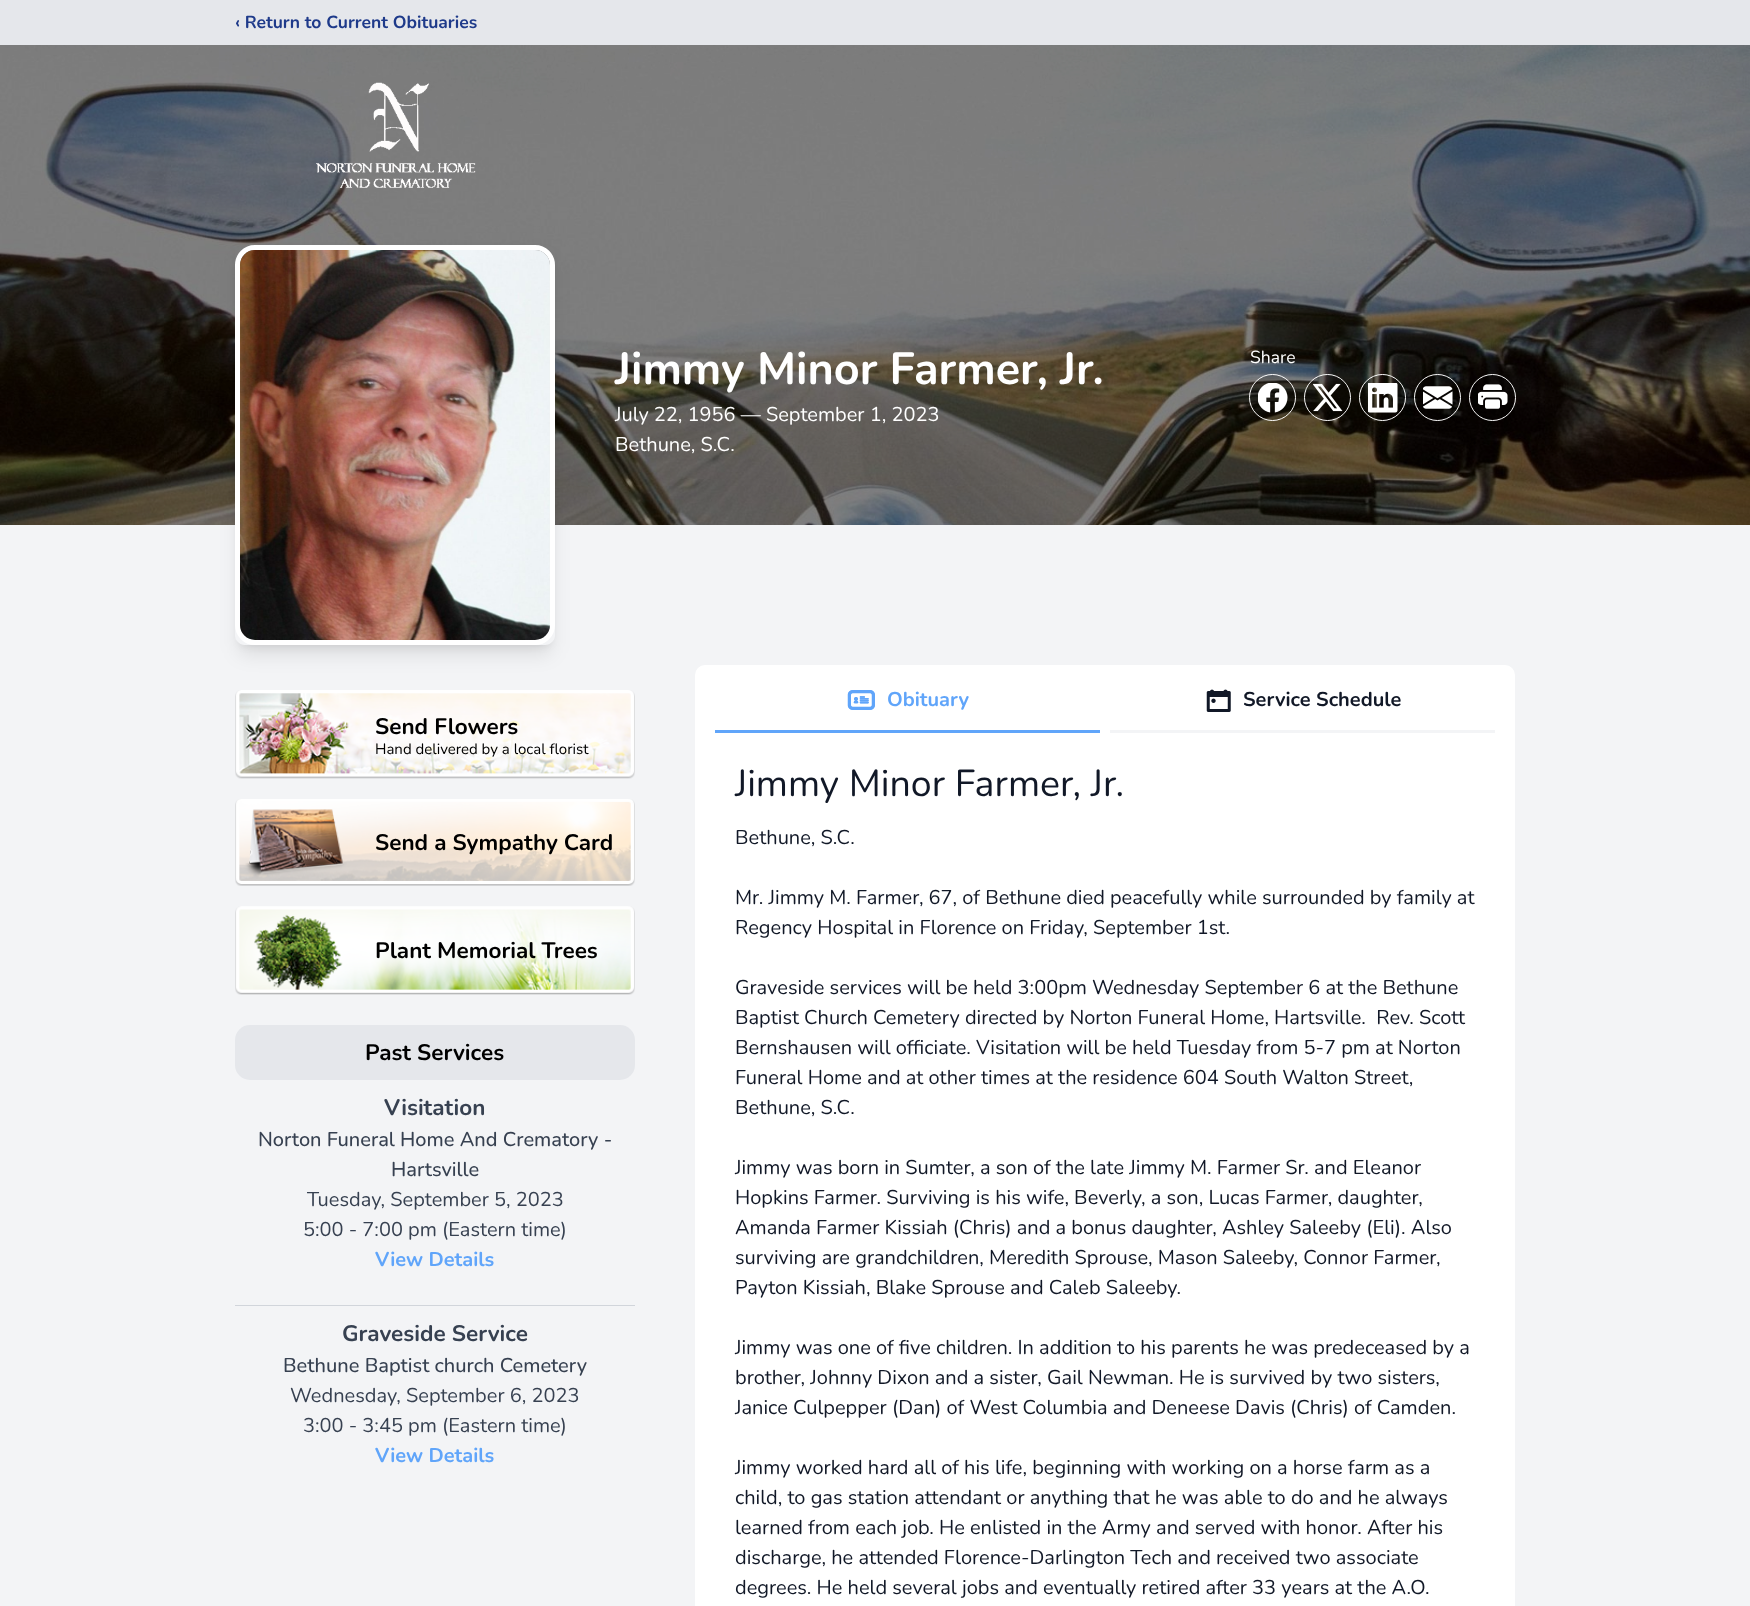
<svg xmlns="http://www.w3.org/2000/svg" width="1750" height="1606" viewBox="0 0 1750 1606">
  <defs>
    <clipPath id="clip1"><path d="M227 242H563V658H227ZM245 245H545C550.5 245 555 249.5 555 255V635C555 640.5 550.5 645 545 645H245C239.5 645 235 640.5 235 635V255C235 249.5 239.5 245 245 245Z" clip-rule="evenodd"/></clipPath>
    <clipPath id="clip2"><path d="M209 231H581V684H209ZM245 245H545C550.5 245 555 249.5 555 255V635C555 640.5 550.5 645 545 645H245C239.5 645 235 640.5 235 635V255C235 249.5 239.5 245 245 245Z" clip-rule="evenodd"/></clipPath>
  </defs>
  <rect width="100%" height="100%" fill="#f3f4f6"/>
  <path d="M0 0h1750v45H0z" fill="#e5e7eb"/>
  <image x="0" y="45" width="1750" height="480" href="img/1.png"/>
  <image x="316" y="82" width="160" height="106" href="img/2.png"/>
  <g clip-path="url(#clip1)">
    <rect x="240" y="255" width="310" height="390" rx="5" fill="#0000001a" filter="blur(4px)"/>
  </g>
  <g clip-path="url(#clip2)">
    <rect x="239" y="261" width="312" height="393" rx="6" fill="#0000001a" filter="blur(9.5px)"/>
  </g>
  <rect x="237.5" y="247.5" width="315" height="395" rx="17.5" fill="none" stroke="#fff" stroke-width="5"/>
  <image x="240" y="250" width="310" height="390" href="img/3.png"/>
  <circle cx="1272.5" cy="397.5" r="23" fill="none" stroke="#fff"/>
  <circle cx="1272.5" cy="397.5" r="22.5" fill="#00000033"/>
  <image x="1258" y="383" width="30" height="30" href="img/4.png"/>
  <circle cx="1327.5" cy="397.5" r="23" fill="none" stroke="#fff"/>
  <circle cx="1327.5" cy="397.5" r="22.5" fill="#00000033"/>
  <image x="1313" y="383" width="30" height="29" href="img/5.png"/>
  <circle cx="1382.5" cy="397.5" r="23" fill="none" stroke="#fff"/>
  <circle cx="1382.5" cy="397.5" r="22.5" fill="#00000033"/>
  <image x="1368" y="383" width="30" height="30" href="img/6.png"/>
  <circle cx="1437.5" cy="397.5" r="23" fill="none" stroke="#fff"/>
  <circle cx="1437.5" cy="397.5" r="22.5" fill="#00000033"/>
  <image x="1423" y="386" width="30" height="23" href="img/7.png"/>
  <circle cx="1492.5" cy="397.5" r="23" fill="none" stroke="#fff"/>
  <circle cx="1492.5" cy="397.5" r="22.5" fill="#00000033"/>
  <image x="1478" y="384" width="30" height="25" href="img/8.png"/>
  <image x="235" y="690" width="400" height="89" href="img/9.png"/>
  <image x="235" y="799" width="400" height="87" href="img/10.png"/>
  <image x="235" y="906" width="400" height="89" href="img/11.png"/>
  <rect x="235" y="1025" width="400" height="55" rx="15" fill="#e5e7eb"/>
  <path d="M235 1305h400v1H235z" fill="#d1d5db"/>
  <rect x="695" y="665" width="820" height="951" rx="10" fill="#fff"/>
  <path d="M715 730h385v3H715z" fill="#60a5fa"/>
  <image x="847" y="690" width="28" height="20" href="img/12.png"/>
  <path d="M1110 730h385v3H1110z" fill="#f3f4f6"/>
  <image x="1206" y="689" width="25" height="23" href="img/13.png"/>
  <text x="235" y="28" font-family="Nunito" font-size="17.5" font-weight="bold" fill="#1e3a8a">‹ Return to Current Obituaries</text>
  <text x="615" y="384" font-family="Nunito" font-size="45" font-weight="bold" fill="#fff">Jimmy Minor Farmer, Jr.</text>
  <g font-family="Nunito" font-size="20" fill="#fff">
    <text x="615" y="421">July 22, 1956 — September 1, 2023</text>
    <text x="615" y="451">Bethune, S.C.</text>
  </g>
  <text x="1250" y="363" font-family="Nunito" font-size="17.5" fill="#fff">Share</text>
  <text x="375" y="734" font-family="Nunito" font-size="22.5" font-weight="bold" fill="#000">Send Flowers</text>
  <text x="375" y="754" font-family="Nunito" font-size="15" fill="#000">Hand delivered by a local florist</text>
  <g font-family="Nunito" font-size="22.5" font-weight="bold" fill="#000">
    <text x="375" y="850">Send a Sympathy Card</text>
    <text x="375" y="958">Plant Memorial Trees</text>
    <text x="365" y="1060">Past Services</text>
  </g>
  <text x="384" y="1115" font-family="Nunito" font-size="22.5" font-weight="bold" fill="#374151">Visitation</text>
  <g font-family="Nunito" font-size="20" font-weight="500" fill="#374151">
    <text x="258" y="1146">Norton Funeral Home And Crematory -</text>
    <text x="391" y="1176">Hartsville</text>
  </g>
  <g font-family="Nunito" font-size="20" fill="#374151">
    <text x="307" y="1206">Tuesday, September 5, 2023</text>
    <text x="303" y="1236">5:00 - 7:00 pm (Eastern time)</text>
  </g>
  <text x="375" y="1266" font-family="Nunito" font-size="20" font-weight="bold" fill="#60a5fa">View Details</text>
  <text x="342" y="1341" font-family="Nunito" font-size="22.5" font-weight="bold" fill="#374151">Graveside Service</text>
  <text x="283" y="1372" font-family="Nunito" font-size="20" font-weight="500" fill="#374151">Bethune Baptist church Cemetery</text>
  <g font-family="Nunito" font-size="20" fill="#374151">
    <text x="290" y="1402">Wednesday, September 6, 2023</text>
    <text x="303" y="1432">3:00 - 3:45 pm (Eastern time)</text>
  </g>
  <g font-family="Nunito" font-size="20" font-weight="bold" fill="#60a5fa">
    <text x="375" y="1462">View Details</text>
    <text x="887" y="706">Obituary</text>
  </g>
  <text x="1243" y="706" font-family="Nunito" font-size="20" font-weight="bold" fill="#111827">Service Schedule</text>
  <text x="735" y="796" font-family="Nunito" font-size="37.5" fill="#111827">Jimmy Minor Farmer, Jr.</text>
  <g font-family="Nunito" font-size="20" fill="#111827">
    <text x="735" y="844">Bethune, S.C.</text>
    <text x="735" y="904">Mr. Jimmy M. Farmer, 67, of Bethune died peacefully while surrounded by family at</text>
    <text x="735" y="934">Regency Hospital in Florence on Friday, September 1st.</text>
    <text x="735" y="994">Graveside services will be held 3:00pm Wednesday September 6 at the Bethune</text>
    <text x="735" y="1024" xml:space="preserve">Baptist Church Cemetery directed by Norton Funeral Home, Hartsville.  Rev. Scott</text>
    <text x="735" y="1054">Bernshausen will officiate. Visitation will be held Tuesday from 5-7 pm at Norton</text>
    <text x="735" y="1084">Funeral Home and at other times at the residence 604 South Walton Street,</text>
    <text x="735" y="1114">Bethune, S.C.</text>
    <text x="735" y="1174">Jimmy was born in Sumter, a son of the late Jimmy M. Farmer Sr. and Eleanor</text>
    <text x="735" y="1204">Hopkins Farmer. Surviving is his wife, Beverly, a son, Lucas Farmer, daughter,</text>
    <text x="735" y="1234">Amanda Farmer Kissiah (Chris) and a bonus daughter, Ashley Saleeby (Eli). Also</text>
    <text x="735" y="1264">surviving are grandchildren, Meredith Sprouse, Mason Saleeby, Connor Farmer,</text>
    <text x="735" y="1294">Payton Kissiah, Blake Sprouse and Caleb Saleeby.</text>
    <text x="735" y="1354">Jimmy was one of five children. In addition to his parents he was predeceased by a</text>
    <text x="735" y="1384">brother, Johnny Dixon and a sister, Gail Newman. He is survived by two sisters,</text>
    <text x="735" y="1414">Janice Culpepper (Dan) of West Columbia and Deneese Davis (Chris) of Camden.</text>
    <text x="735" y="1474">Jimmy worked hard all of his life, beginning with working on a horse farm as a</text>
    <text x="735" y="1504">child, to gas station attendant or anything that he was able to do and he always</text>
    <text x="735" y="1534">learned from each job. He enlisted in the Army and served with honor. After his</text>
    <text x="735" y="1564">discharge, he attended Florence-Darlington Tech and received two associate</text>
    <text x="735" y="1594">degrees. He held several jobs and eventually retired after 33 years at the A.O.</text>
  </g>
</svg>
